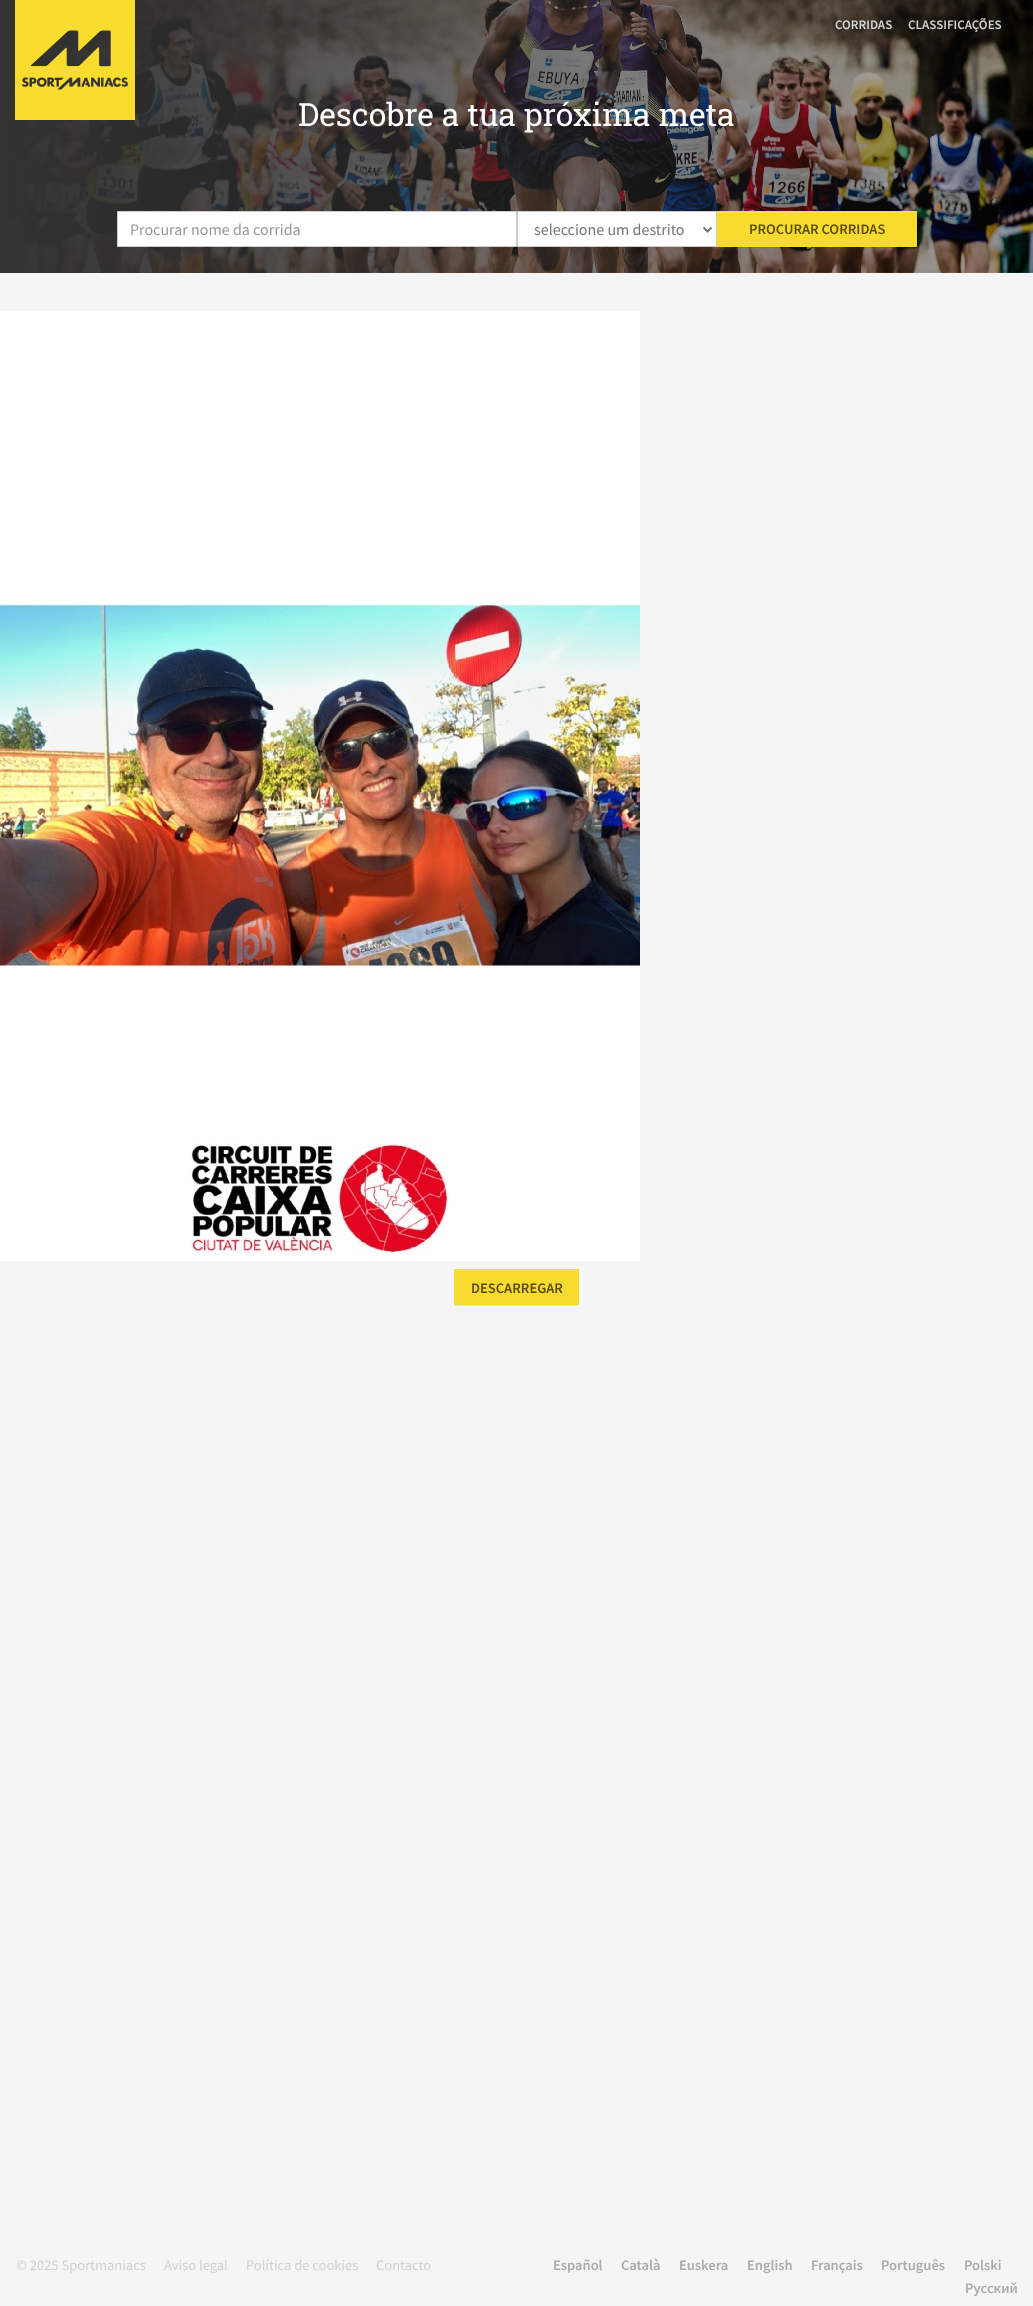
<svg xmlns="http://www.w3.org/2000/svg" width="1033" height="2306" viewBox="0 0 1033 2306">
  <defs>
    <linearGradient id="g1" gradientUnits="userSpaceOnUse" x1="0" y1="135" x2="1033" y2="135"><stop offset="0" stop-color="#333"/><stop offset="1" stop-color="#333" stop-opacity="0"/></linearGradient>
  </defs>
  <rect width="100%" height="100%" fill="#f5f5f5"/>
  <image x="6" y="0" width="1027" height="273" href="img/2.png"/>
  <path d="M0 0h1011v273H0z" fill="url(#g1)"/>
  <image x="15" y="0" width="120" height="120" href="img/1.png"/>
  <path d="M117.5 211.5h399v35H117.5z" fill="#fff" stroke="#ccc"/>
  <path d="M517.5 211.5h199v35H517.5z" fill="#fff" stroke="#ccc"/>
  <path d="M703.5 227.5L707.5 231.5L711.5 227.5" fill="none" stroke="#767676" stroke-width="2"/>
  <path d="M717 212h200v36H717z" fill="#00000012" filter="blur(0.5px)"/>
  <path d="M717 211h200v36H717z" fill="#f9db2d"/>
  <path d="M718 212h198v1H718z" fill="#fae04d"/>
  <image x="0" y="311" width="640" height="950" href="img/3.png"/>
  <path d="M454 1270h125v36H454z" fill="#00000012" filter="blur(0.5px)"/>
  <path d="M454 1269h125v36H454z" fill="#f9db2d"/>
  <path d="M455 1270h123v1H455z" fill="#fae04d"/>
  <text x="835" y="29" font-family="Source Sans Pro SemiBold" font-size="13" font-weight="600" fill="#d6d5d3">CORRIDAS</text>
  <text x="908" y="29" font-family="Source Sans Pro SemiBold" font-size="13" font-weight="600" fill="#d0d0d0">CLASSIFICAÇÕES</text>
  <text x="298" y="126" font-family="Roboto Slab" font-size="32" fill="#fff">Descobre a tua próxima meta</text>
  <text x="130" y="235" font-family="Source Sans Pro" font-size="16" fill="#999">Procurar nome da corrida</text>
  <text x="534" y="235" font-family="Source Sans Pro" font-size="16" fill="#767676">seleccione um destrito</text>
  <g font-family="Source Sans Pro SemiBold" font-size="14.5" font-weight="600" fill="#584b03">
    <text x="749" y="234">PROCURAR CORRIDAS</text>
    <text x="471" y="1293">DESCARREGAR</text>
  </g>
  <g font-family="Source Sans Pro" font-size="14.5" fill="#d0d0d0">
    <text x="16" y="2270">© 2025 Sportmaniacs</text>
    <text x="164" y="2270">Aviso legal</text>
    <text x="246" y="2270">Política de cookies</text>
    <text x="376" y="2270">Contacto</text>
  </g>
  <g font-family="Source Sans Pro SemiBold" font-size="14.5" font-weight="600" fill="#aaa">
    <text x="553" y="2270">Español</text>
    <text x="621" y="2270">Català</text>
    <text x="679" y="2270">Euskera</text>
    <text x="747" y="2270">English</text>
    <text x="811" y="2270">Français</text>
    <text x="881" y="2270">Português</text>
    <text x="964" y="2270">Polski</text>
    <text x="965" y="2293">Русский</text>
  </g>
</svg>
